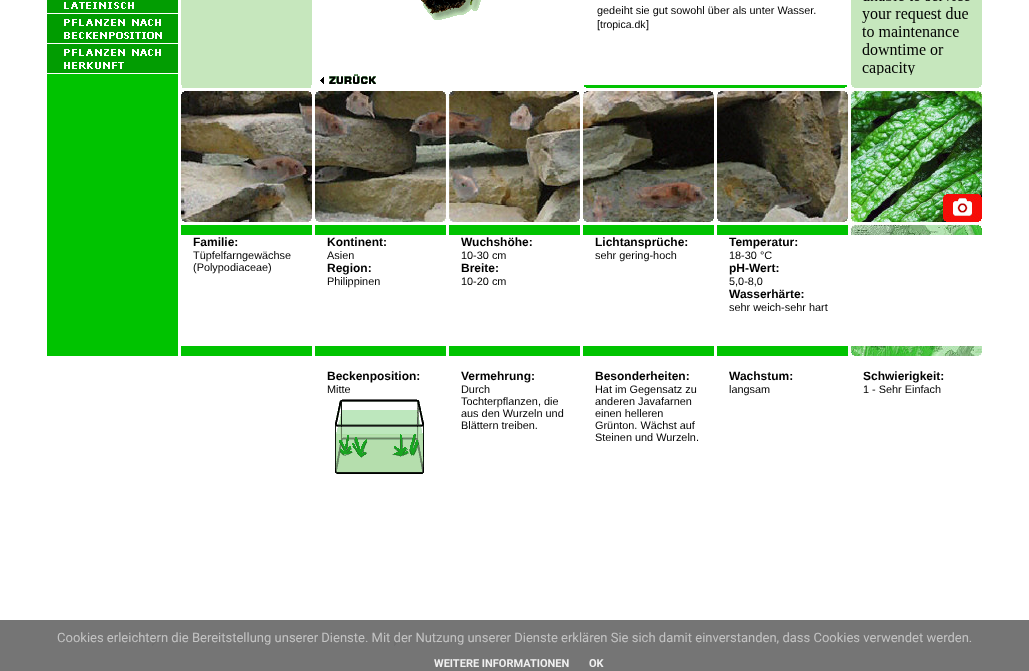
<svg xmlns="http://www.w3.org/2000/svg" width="1029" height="671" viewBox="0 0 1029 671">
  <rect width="100%" height="100%" fill="#fff"/>
  <path d="M0 620h1029v51H0z" fill="#757575"/>
  <path d="M47 74h131v282H47z" fill="#00c300"/>
  <image x="47" y="0" width="131" height="13" href="img/1.png"/>
  <image x="47" y="14" width="131" height="29" href="img/2.png"/>
  <image x="47" y="44" width="131" height="29" href="img/3.png"/>
  <path d="M181 0h1v78H181z" fill="#c6e7bd"/>
  <path d="M182 0h130v78H182z" fill="#c6e7bd"/>
  <image x="421" y="0" width="60" height="20" href="img/4.png"/>
  <image x="320" y="74" width="56" height="10" href="img/5.png"/>
  <path d="M851 0h131v85H851z" fill="#c6e7bd"/>
  <image x="862" y="0" width="108" height="75" href="img/6.png"/>
  <path d="M181 78h131v7H181z" fill="#c6e7bd"/>
  <path d="M182 85h129v3H182z" fill="#c6e7bd"/>
  <image x="584" y="85" width="397" height="3" href="img/7.png"/>
  <image x="181" y="91" width="131" height="131" href="img/8.png"/>
  <image x="315" y="91" width="265" height="131" href="img/9.png"/>
  <image x="583" y="91" width="131" height="131" href="img/10.png"/>
  <image x="717" y="91" width="131" height="131" href="img/11.png"/>
  <image x="851" y="91" width="131" height="131" href="img/12.png"/>
  <path d="M181 225h131v10H181z" fill="#00c300"/>
  <path d="M315 225h131v10H315z" fill="#00c300"/>
  <path d="M449 225h131v10H449z" fill="#00c300"/>
  <path d="M583 225h131v10H583z" fill="#00c300"/>
  <path d="M717 225h131v10H717z" fill="#00c300"/>
  <image x="848" y="222" width="134" height="13" href="img/13.png"/>
  <path d="M181 346h131v10H181z" fill="#00c300"/>
  <path d="M315 346h131v10H315z" fill="#00c300"/>
  <path d="M449 346h131v10H449z" fill="#00c300"/>
  <path d="M583 346h131v10H583z" fill="#00c300"/>
  <path d="M717 346h131v10H717z" fill="#00c300"/>
  <image x="848" y="346" width="134" height="10" href="img/14.png"/>
  <image x="335" y="399" width="89" height="75" href="img/15.png"/>
  <image x="152" y="639" width="4" height="7" href="img/16.png"/>
  <path d="M264 640h1v5H264z" fill="#6f6f6f"/>
  <image x="394" y="639" width="4" height="7" href="img/16.png"/>
  <g font-family="Liberation Sans" font-size="10.9" fill="#000">
    <text x="597" y="14">gedeiht sie gut sowohl über als unter Wasser.</text>
    <text x="597" y="28">[</text>
  </g>
  <text x="600" y="28" font-family="Liberation Sans" font-size="10.5" fill="#000">tropica.dk</text>
  <text x="646" y="28" font-family="Liberation Sans" font-size="10.9" fill="#000">]</text>
  <text x="193" y="246" font-family="Liberation Sans" font-size="12" font-weight="bold" fill="#000">Familie:</text>
  <g font-family="Liberation Sans" font-size="10.9" fill="#000">
    <text x="193" y="259">Tüpfelfarngewächse</text>
    <text x="193" y="271">(Polypodiaceae)</text>
  </g>
  <text x="327" y="246" font-family="Liberation Sans" font-size="12" font-weight="bold" fill="#000">Kontinent:</text>
  <text x="327" y="259" font-family="Liberation Sans" font-size="10.9" fill="#000">Asien</text>
  <text x="327" y="272" font-family="Liberation Sans" font-size="12" font-weight="bold" fill="#000">Region:</text>
  <text x="327" y="285" font-family="Liberation Sans" font-size="10.9" fill="#000">Philippinen</text>
  <text x="461" y="246" font-family="Liberation Sans" font-size="12" font-weight="bold" fill="#000">Wuchshöhe:</text>
  <text x="461" y="259" font-family="Liberation Sans" font-size="10.9" fill="#000">10-30 cm</text>
  <text x="461" y="272" font-family="Liberation Sans" font-size="12" font-weight="bold" fill="#000">Breite:</text>
  <text x="461" y="285" font-family="Liberation Sans" font-size="10.9" fill="#000">10-20 cm</text>
  <text x="595" y="246" font-family="Liberation Sans" font-size="12" font-weight="bold" fill="#000">Lichtansprüche:</text>
  <text x="595" y="259" font-family="Liberation Sans" font-size="10.9" fill="#000">sehr gering-hoch</text>
  <text x="729" y="246" font-family="Liberation Sans" font-size="12" font-weight="bold" fill="#000">Temperatur:</text>
  <text x="729" y="259" font-family="Liberation Sans" font-size="10.9" fill="#000">18-30 °C</text>
  <text x="729" y="272" font-family="Liberation Sans" font-size="12" font-weight="bold" fill="#000">pH-Wert:</text>
  <text x="729" y="285" font-family="Liberation Sans" font-size="10.9" fill="#000">5,0-8,0</text>
  <text x="729" y="298" font-family="Liberation Sans" font-size="12" font-weight="bold" fill="#000">Wasserhärte:</text>
  <text x="729" y="311" font-family="Liberation Sans" font-size="10.9" fill="#000">sehr weich-sehr hart</text>
  <text x="327" y="380" font-family="Liberation Sans" font-size="12" font-weight="bold" fill="#000">Beckenposition:</text>
  <text x="327" y="393" font-family="Liberation Sans" font-size="10.9" fill="#000">Mitte</text>
  <text x="461" y="380" font-family="Liberation Sans" font-size="12" font-weight="bold" fill="#000">Vermehrung:</text>
  <g font-family="Liberation Sans" font-size="10.9" fill="#000">
    <text x="461" y="393">Durch</text>
    <text x="461" y="405">Tochterpflanzen, die</text>
    <text x="461" y="417">aus den Wurzeln und</text>
    <text x="461" y="429">Blättern treiben.</text>
  </g>
  <text x="595" y="380" font-family="Liberation Sans" font-size="12" font-weight="bold" fill="#000">Besonderheiten:</text>
  <g font-family="Liberation Sans" font-size="10.9" fill="#000">
    <text x="595" y="393">Hat im Gegensatz zu</text>
    <text x="595" y="405">anderen Javafarnen</text>
    <text x="595" y="417">einen helleren</text>
    <text x="595" y="429">Grünton. Wächst auf</text>
    <text x="595" y="441">Steinen und Wurzeln.</text>
  </g>
  <text x="729" y="380" font-family="Liberation Sans" font-size="12" font-weight="bold" fill="#000">Wachstum:</text>
  <text x="729" y="393" font-family="Liberation Sans" font-size="10.9" fill="#000">langsam</text>
  <text x="863" y="380" font-family="Liberation Sans" font-size="12" font-weight="bold" fill="#000">Schwierigkeit:</text>
  <text x="863" y="393" font-family="Liberation Sans" font-size="10.9" fill="#000">1 - Sehr Einfach</text>
  <text x="57" y="642" font-family="Roboto" font-size="13" fill="#c3c3c3">Cookies erleichtern die Bereitstellung unserer Dienste. Mit der Nutzung unserer Dienste erklären Sie sich damit einverstanden, dass Cookies verwendet werden.</text>
  <g font-family="Roboto" font-size="11" font-weight="bold" fill="#f0f0f0">
    <text x="434" y="667">WEITERE INFORMATIONEN</text>
    <text x="589" y="667">OK</text>
  </g>
</svg>
